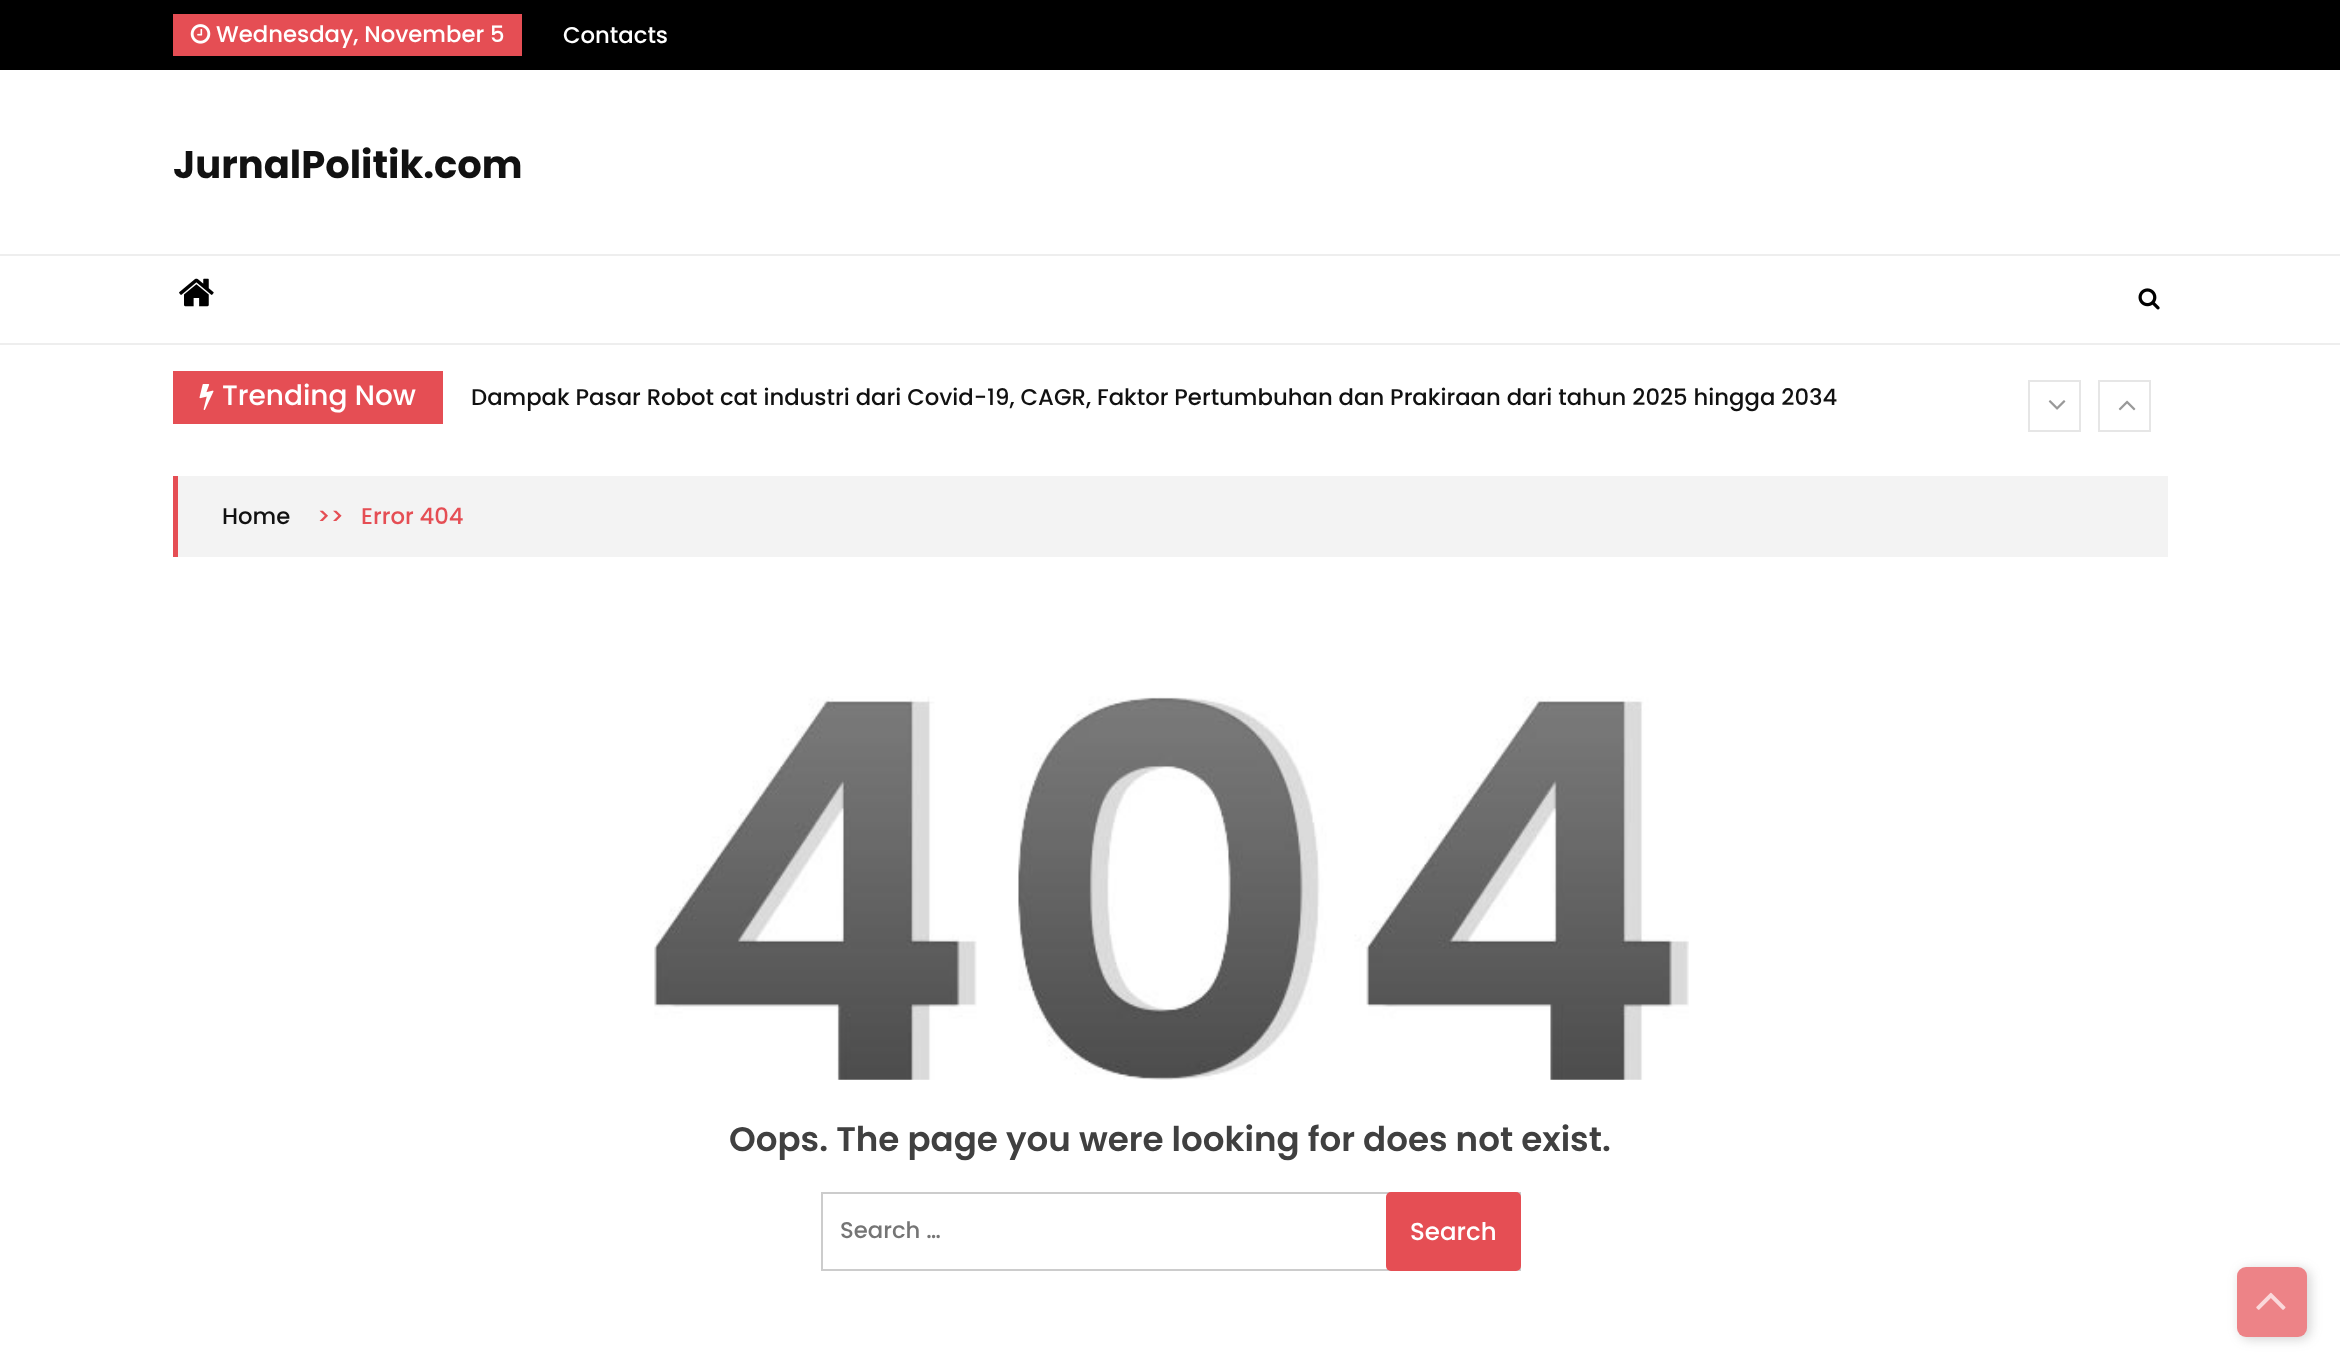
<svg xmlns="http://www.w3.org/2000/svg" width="2340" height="1371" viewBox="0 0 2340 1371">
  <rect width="100%" height="100%" fill="#fff"/>
  <path d="M0 0h2340v70H0z" fill="#000"/>
  <path d="M173 14h349v42H173z" fill="#e54e54"/>
  <image x="190" y="24" width="21" height="20" href="img/1.png"/>
  <path d="M0 254h2340v2H0z" fill="#eee"/>
  <path d="M0 343h2340v2H0z" fill="#eee"/>
  <image x="179" y="278" width="35" height="29" href="img/2.png"/>
  <image x="2138" y="288" width="22" height="22" href="img/3.png"/>
  <path d="M173 371h270v53H173z" fill="#e54e54"/>
  <image x="199" y="384" width="15" height="26" href="img/4.png"/>
  <path d="M2029 381h51v50H2029z" fill="none" stroke="#e6e6e6" stroke-width="2"/>
  <image x="2048" y="400" width="18" height="10" href="img/5.png"/>
  <path d="M2099 381h51v50H2099z" fill="none" stroke="#e6e6e6" stroke-width="2"/>
  <image x="2118" y="400" width="18" height="11" href="img/6.png"/>
  <path d="M178 476h1990v81H178z" fill="#f3f3f3"/>
  <path d="M173 476h5v81H173z" fill="#e54e54"/>
  <image x="654" y="696" width="1035" height="384" href="img/7.png"/>
  <path d="M822 1193h698v77H822z" fill="none" stroke="#ccc" stroke-width="2"/>
  <rect x="1386" y="1192" width="135" height="79" rx="5" fill="#e54e54"/>
  <rect x="2240" y="1269" width="70" height="70" rx="9" fill="#5f5d5d47" filter="blur(6px)"/>
  <rect x="2237" y="1267" width="70" height="70" rx="9" fill="#ed8387"/>
  <image x="2256" y="1292" width="30" height="18" href="img/8.png"/>
  <g font-family="Poppins" font-size="22.75" font-weight="500" fill="#fff">
    <text x="216" y="42">Wednesday, November 5</text>
    <text x="563" y="43">Contacts</text>
  </g>
  <text x="173" y="178" font-family="Poppins" font-size="38.5" font-weight="bold" fill="#111">JurnalPolitik.com</text>
  <text x="222" y="405" font-family="Poppins" font-size="28" font-weight="500" fill="#fff">Trending Now</text>
  <g font-family="Poppins" font-size="22.75" font-weight="500" fill="#111">
    <text x="471" y="405">Dampak Pasar Robot cat industri dari Covid-19, CAGR, Faktor Pertumbuhan dan Prakiraan dari tahun 2025 hingga 2034</text>
    <text x="222" y="524">Home</text>
  </g>
  <g font-family="Poppins" font-size="22.75" font-weight="500" fill="#e54e54">
    <text x="317" y="524">&gt;&gt;</text>
    <text x="361" y="524">Error 404</text>
  </g>
  <text x="729" y="1151" font-family="Poppins" font-size="34.1" font-weight="600" fill="#404040">Oops. The page you were looking for does not exist.</text>
  <text x="840" y="1238" font-family="Poppins" font-size="22.75" font-weight="500" fill="#757575">Search …</text>
  <text x="1410" y="1240" font-family="Poppins" font-size="24.5" font-weight="500" fill="#fff">Search</text>
</svg>
